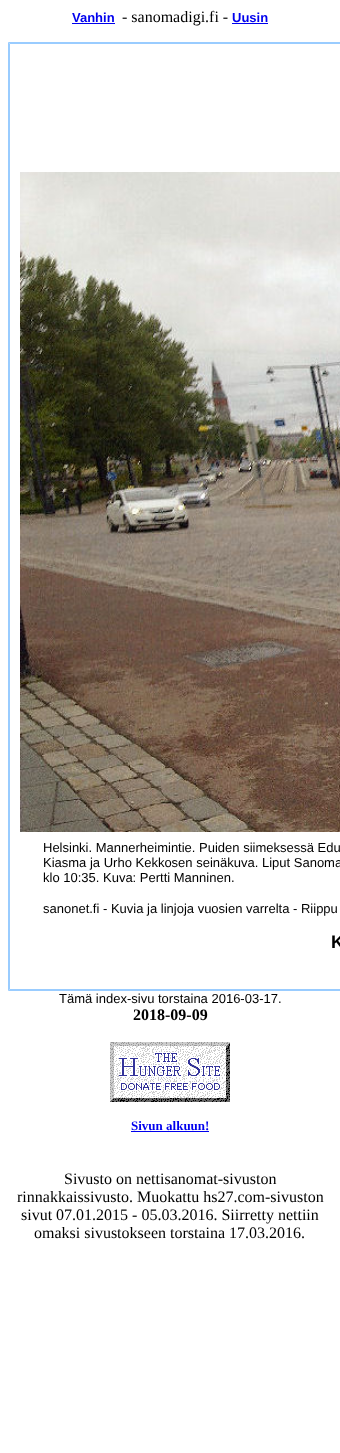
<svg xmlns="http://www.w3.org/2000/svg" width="340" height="1453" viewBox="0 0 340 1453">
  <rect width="100%" height="100%" fill="#fff"/>
  <path d="M72 23h43v1H72z" fill="#00e"/>
  <path d="M232 23h36v1H232z" fill="#00e"/>
  <path d="M8.5 42.5h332v948H8.5z" fill="none" stroke="#9cf"/>
  <path d="M9.5 43.5h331v946H9.5z" fill="none" stroke="#9cf"/>
  <image x="20" y="172" width="320" height="660" href="img/1.png"/>
  <image x="110" y="1042" width="120" height="60" href="img/2.png"/>
  <path d="M131 1131h78v1H131z" fill="#00e"/>
  <text x="72" y="22" font-family="Liberation Sans" font-size="13" font-weight="bold" fill="#00e">Vanhin</text>
  <text x="122" y="22" font-family="Liberation Serif" font-size="16" fill="#000">- sanomadigi.fi -</text>
  <text x="232" y="22" font-family="Liberation Sans" font-size="13" font-weight="bold" fill="#00e">Uusin</text>
  <g font-family="Liberation Sans" font-size="13" fill="#000">
    <text x="43" y="852">Helsinki. Mannerheimintie. Puiden siimeksessä Edu</text>
    <text x="43" y="867">Kiasma ja Urho Kekkosen seinäkuva. Liput Sanoma</text>
    <text x="43" y="882">klo 10:35. Kuva: Pertti Manninen.</text>
    <text x="43" y="913">sanonet.fi - Kuvia ja linjoja vuosien varrelta - Riippu</text>
  </g>
  <text x="331" y="948" font-family="Liberation Sans" font-size="18" font-weight="bold" fill="#000">K</text>
  <text x="59" y="1003" font-family="Liberation Sans" font-size="13" fill="#000">Tämä index-sivu torstaina 2016-03-17.</text>
  <text x="133" y="1020" font-family="Liberation Serif" font-size="16" font-weight="bold" fill="#000">2018-09-09</text>
  <text x="131" y="1130" font-family="Liberation Serif" font-size="13" font-weight="bold" fill="#00e">Sivun alkuun!</text>
  <g font-family="Liberation Serif" font-size="16" fill="#000">
    <text x="64" y="1184">Sivusto on nettisanomat-sivuston</text>
    <text x="17" y="1202">rinnakkaissivusto. Muokattu hs27.com-sivuston</text>
    <text x="21" y="1220">sivut 07.01.2015 - 05.03.2016. Siirretty nettiin</text>
    <text x="34" y="1238">omaksi sivustokseen torstaina 17.03.2016.</text>
  </g>
</svg>
